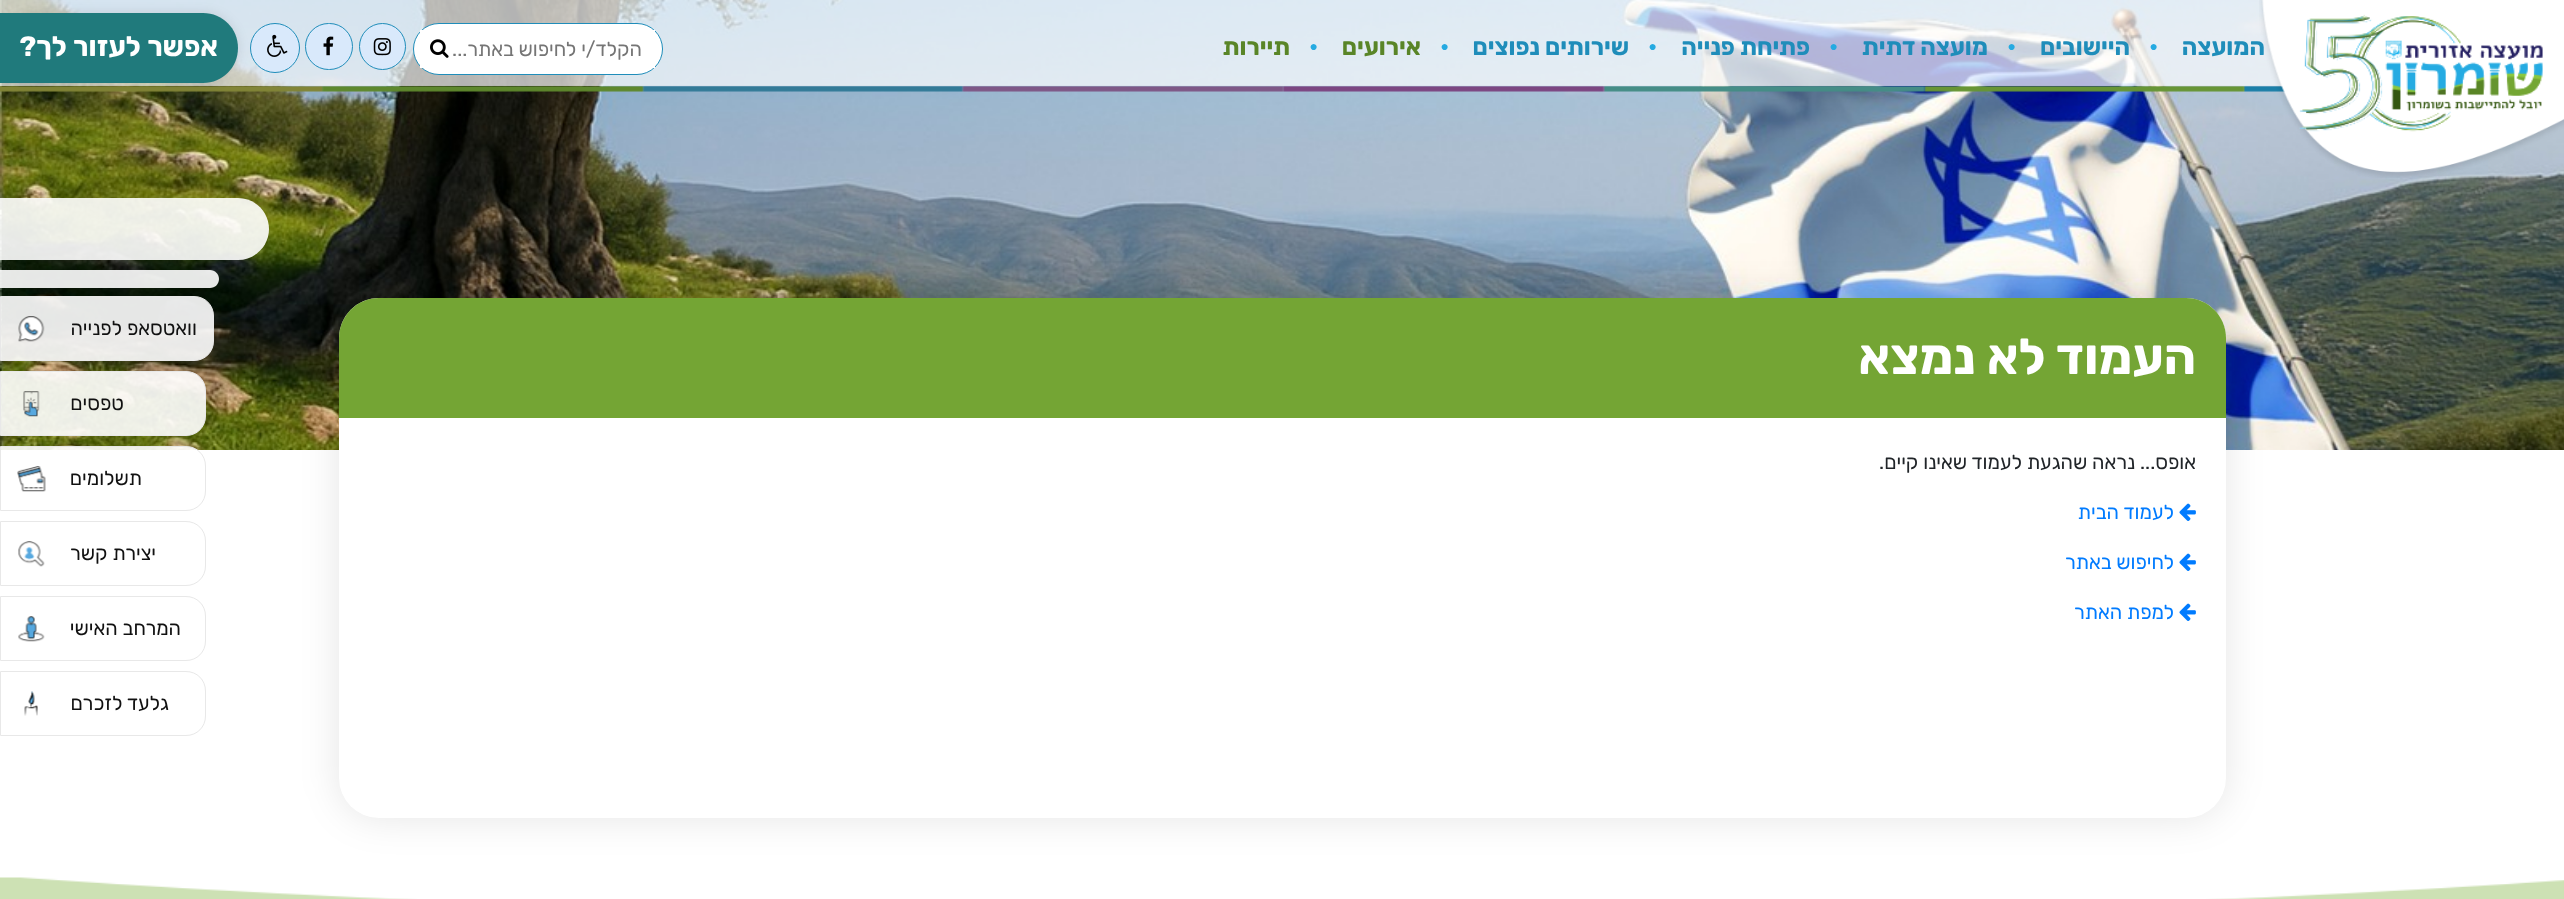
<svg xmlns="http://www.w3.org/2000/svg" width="2564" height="899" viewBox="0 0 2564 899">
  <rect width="100%" height="100%" fill="#fff"/>
  <image x="0" y="0" width="2564" height="450" href="img/1.png"/>
  <path d="M0 0h2283v86H0z" fill="#ffffffb3"/>
  <image x="0" y="85" width="2285" height="7" href="img/5.png"/>
  <rect y="13" width="238" height="70" rx="35" fill="#0000001a" filter="blur(6px)"/>
  <circle cx="275" cy="48" r="24.5" fill="#d9e9fb" stroke="#1f8dba"/>
  <image x="267" y="34" width="21" height="23" href="img/2.png"/>
  <path d="M0 13H203C222.5 13 238 28.5 238 48C238 67.5 222.5 83 203 83H0Z" fill="#207a7c"/>
  <rect x="413.5" y="23.5" width="249" height="51" rx="25.5" fill="#fff" stroke="#1f8dba"/>
  <path d="M420 30h235v38H420z" fill="#fff"/>
  <image x="430" y="39" width="19" height="19" href="img/6.png"/>
  <circle cx="382.5" cy="46.5" r="23" fill="#d9e9fb" stroke="#1f8dba"/>
  <image x="373" y="38" width="18" height="18" href="img/7.png"/>
  <rect x="305.5" y="23.5" width="47" height="46" rx="23" fill="#d9e9fb" stroke="#1f8dba"/>
  <image x="323" y="36" width="11" height="20" href="img/8.png"/>
  <rect x="339" y="298" width="1887" height="520" rx="40" fill="#0000001a" filter="blur(19px)"/>
  <rect x="339" y="298" width="1887" height="520" rx="40" fill="#fff"/>
  <path d="M379 298H2186C2208 298 2226 316 2226 338V418H339V338C339 316 357 298 379 298Z" fill="#74a534"/>
  <image x="2179" y="503" width="17" height="18" href="img/9.png"/>
  <image x="2179" y="553" width="17" height="18" href="img/9.png"/>
  <image x="2179" y="603" width="17" height="18" href="img/9.png"/>
  <path d="M0 198H238C255 198 269 212 269 229C269 246 255 260 238 260H0Z" fill="#ffffffe6"/>
  <path d="M0 270H210C215 270 219 274 219 279C219 284 215 288 210 288H0Z" fill="#ffffffe6"/>
  <path d="M.5 296.5H194C205 296.5 213.5 305 213.5 316V341C213.5 352 205 360.5 194 360.5H.5Z" fill="#ffffffe6" stroke="#e8e8e8"/>
  <image x="18" y="316" width="27" height="26" href="img/10.png"/>
  <path d="M.5 371.5H186C197 371.5 205.5 380 205.5 391V416C205.5 427 197 435.5 186 435.5H.5Z" fill="#ffffffe6" stroke="#e8e8e8"/>
  <image x="23" y="391" width="17" height="26" href="img/11.png"/>
  <path d="M.5 446.5H186C197 446.5 205.5 455 205.5 466V491C205.5 502 197 510.5 186 510.5H.5Z" fill="#ffffffe6" stroke="#e8e8e8"/>
  <image x="17" y="466" width="29" height="26" href="img/12.png"/>
  <path d="M.5 521.5H186C197 521.5 205.5 530 205.5 541V566C205.5 577 197 585.5 186 585.5H.5Z" fill="none" stroke="#e8e8e8"/>
  <image x="18" y="541" width="27" height="26" href="img/13.png"/>
  <path d="M.5 596.5H186C197 596.5 205.5 605 205.5 616V641C205.5 652 197 660.5 186 660.5H.5Z" fill="none" stroke="#e8e8e8"/>
  <image x="18" y="616" width="27" height="26" href="img/14.png"/>
  <path d="M.5 671.5H186C197 671.5 205.5 680 205.5 691V716C205.5 727 197 735.5 186 735.5H.5Z" fill="none" stroke="#e8e8e8"/>
  <image x="24" y="691" width="14" height="25" href="img/15.png"/>
  <image x="0" y="877" width="2564" height="22" href="img/16.png"/>
  <text x="2265" y="55" font-family="Rubik" font-size="24" font-weight="bold" direction="rtl" fill="#1f8dba">המועצה</text>
  <image x="2259" y="0" width="305" height="178" href="img/3.png"/>
  <image x="2299" y="14" width="244" height="118" href="img/4.png"/>
  <text x="2149" y="55" font-family="Rubik" font-size="24" font-weight="bold" fill="#25aae1">•</text>
  <text x="2130" y="55" font-family="Rubik" font-size="24" font-weight="bold" direction="rtl" fill="#1f8dba">היישובים</text>
  <text x="2007" y="55" font-family="Rubik" font-size="24" font-weight="bold" fill="#25aae1">•</text>
  <text x="1988" y="55" font-family="Rubik" font-size="24" font-weight="bold" direction="rtl" fill="#1f8dba">מועצה דתית</text>
  <text x="1829" y="55" font-family="Rubik" font-size="24" font-weight="bold" fill="#25aae1">•</text>
  <text x="1810" y="55" font-family="Rubik" font-size="24" font-weight="bold" direction="rtl" fill="#1f8dba">פתיחת פנייה</text>
  <text x="1648" y="55" font-family="Rubik" font-size="24" font-weight="bold" fill="#25aae1">•</text>
  <text x="1629" y="55" font-family="Rubik" font-size="24" font-weight="bold" direction="rtl" fill="#1f8dba">שירותים נפוצים</text>
  <text x="1440" y="55" font-family="Rubik" font-size="24" font-weight="bold" fill="#25aae1">•</text>
  <text x="1421" y="55" font-family="Rubik" font-size="24" font-weight="bold" direction="rtl" fill="#598527">אירועים</text>
  <text x="1309" y="55" font-family="Rubik" font-size="24" font-weight="bold" fill="#25aae1">•</text>
  <text x="1290" y="55" font-family="Rubik" font-size="24" font-weight="bold" direction="rtl" fill="#598527">תיירות</text>
  <text x="218" y="56" word-spacing="1" font-family="Rubik" font-size="28" font-weight="bold" direction="rtl" fill="#fff">אפשר לעזור לך?</text>
  <text x="642" y="56" font-family="Rubik" font-size="20" direction="rtl" fill="#757575">הקלד/י לחיפוש באתר...</text>
  <text x="2196" y="374" word-spacing="1" font-family="Rubik" font-size="50" font-weight="bold" direction="rtl" fill="#fff">העמוד לא נמצא</text>
  <text x="2196" y="469" font-family="Rubik" font-size="20" direction="rtl" fill="#212529">אופס... נראה שהגעת לעמוד שאינו קיים.</text>
  <g font-family="Rubik" font-size="20" direction="rtl" fill="#007bff">
    <text x="2174" y="519">לעמוד הבית</text>
    <text x="2174" y="569">לחיפוש באתר</text>
    <text x="2174" y="619">למפת האתר</text>
  </g>
  <g font-family="Rubik" font-size="20" direction="rtl" fill="#111">
    <text x="197" y="335">וואטסאפ לפנייה</text>
    <text x="124" y="410">טפסים</text>
    <text x="142" y="485">תשלומים</text>
    <text x="156" y="560">יצירת קשר</text>
    <text x="181" y="635">המרחב האישי</text>
    <text x="169" y="710">גלעד לזכרם</text>
  </g>
</svg>
